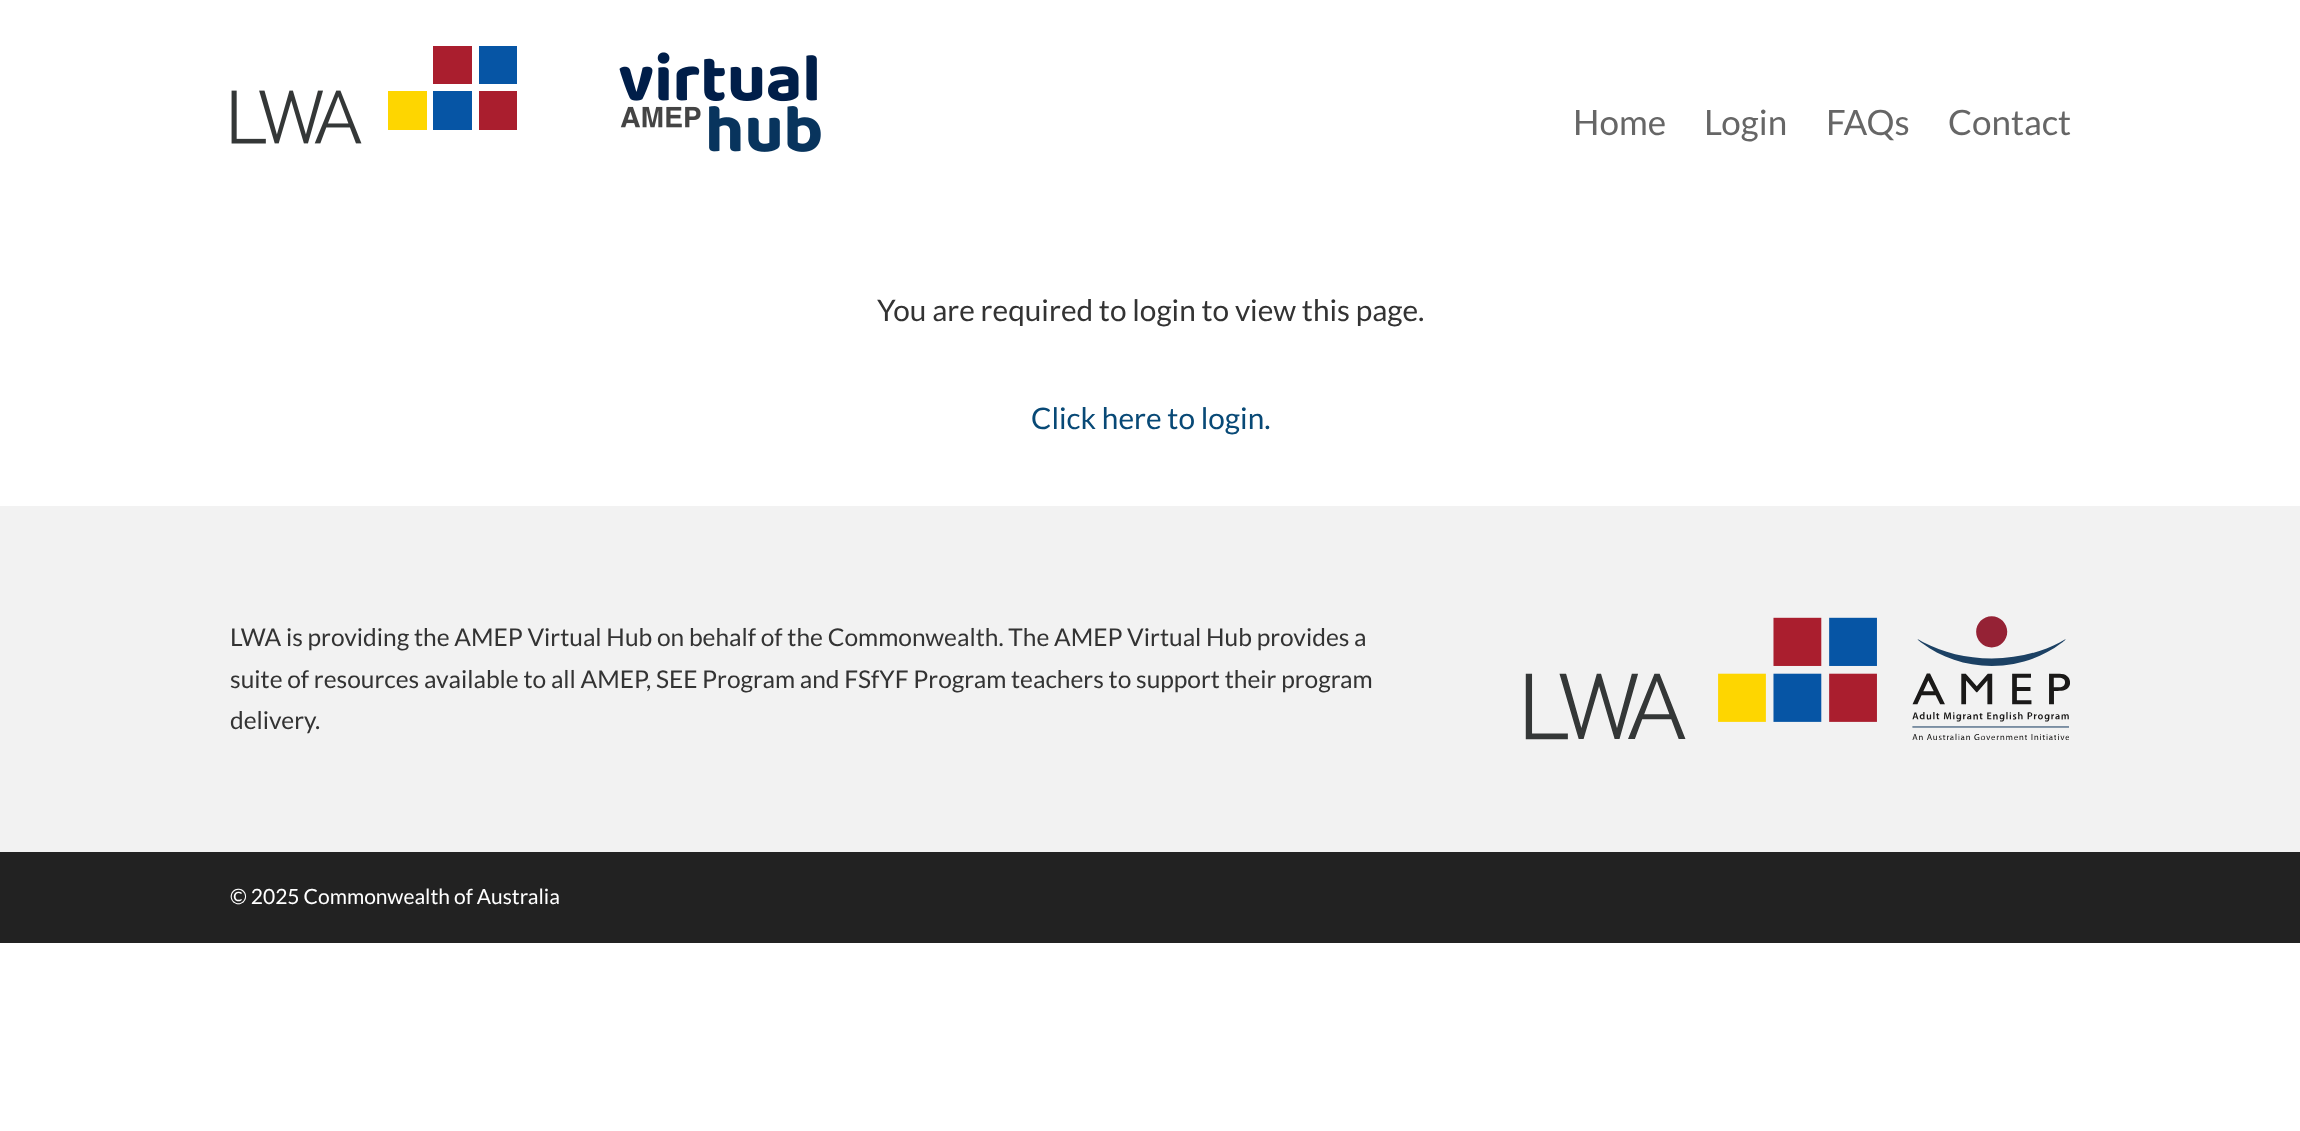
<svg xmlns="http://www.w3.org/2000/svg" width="2300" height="1131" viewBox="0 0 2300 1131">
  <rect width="100%" height="100%" fill="#fff"/>
  <image x="231" y="46" width="286" height="98" href="img/1.png"/>
  <image x="619" y="52" width="202" height="100" href="img/2.png"/>
  <path d="M0 506h2300v346H0z" fill="#f2f2f2"/>
  <image x="1525" y="616" width="545" height="124" href="img/3.png"/>
  <path d="M0 852h2300v91H0z" fill="#222"/>
  <g font-family="Lato" font-size="35" fill="#666">
    <text x="1573" y="135">Home</text>
    <text x="1704" y="135">Login</text>
    <text x="1826" y="135">FAQs</text>
    <text x="1948" y="135">Contact</text>
  </g>
  <text x="877" y="321" font-family="Lato" font-size="29.75" fill="#333">You are required to login to view this page.</text>
  <text x="1031" y="429" font-family="Lato" font-size="29.75" fill="#084976">Click here to login.</text>
  <g font-family="Lato" font-size="24.5" fill="#333">
    <text x="230" y="646">LWA is providing the AMEP Virtual Hub on behalf of the Commonwealth. The AMEP Virtual Hub provides a</text>
    <text x="230" y="688">suite of resources available to all AMEP, SEE Program and FSfYF Program teachers to support their program</text>
    <text x="230" y="729">delivery.</text>
  </g>
  <text x="230" y="904" font-family="Lato" font-size="21" fill="#fff">© 2025 Commonwealth of Australia</text>
</svg>
